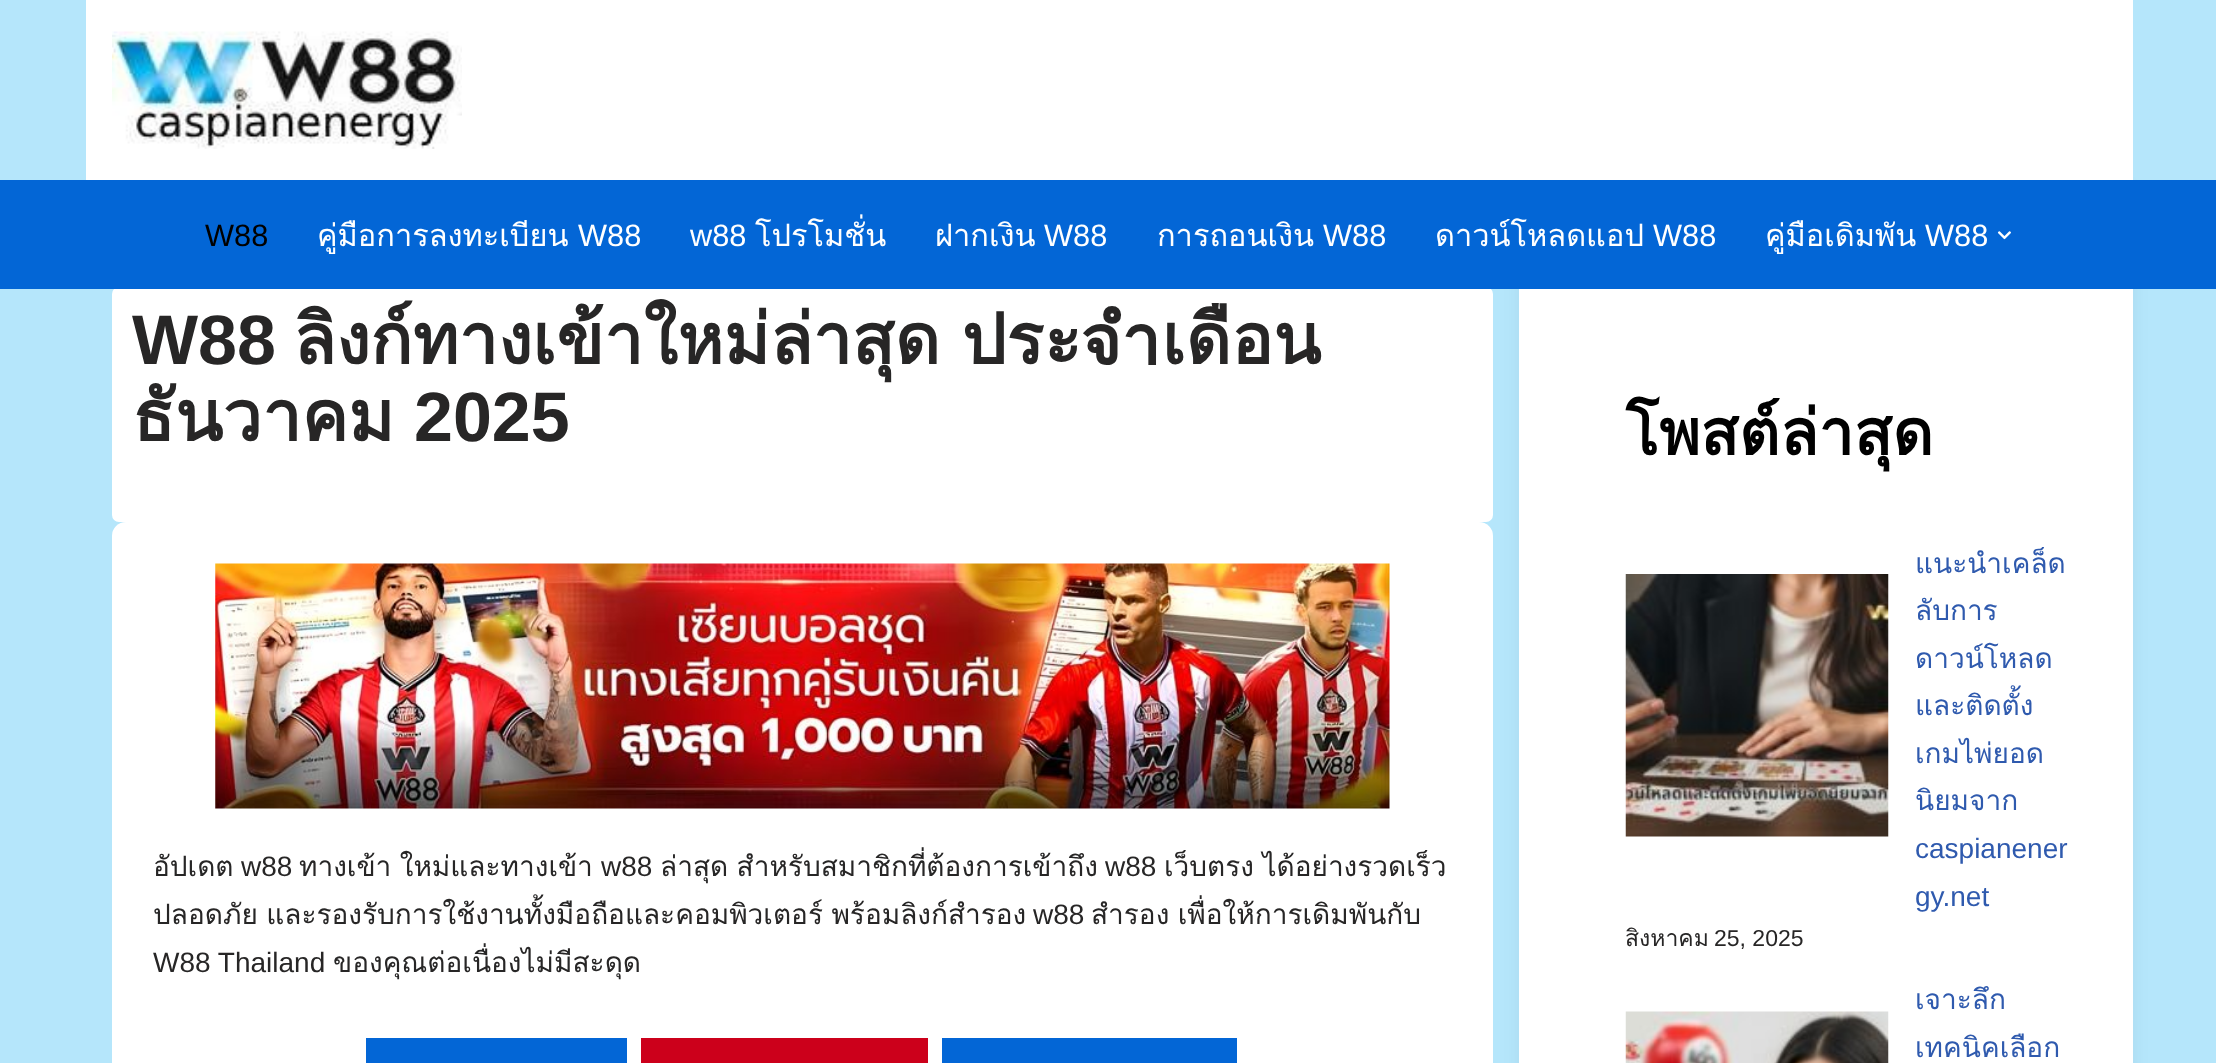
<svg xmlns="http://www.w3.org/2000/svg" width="2216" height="1063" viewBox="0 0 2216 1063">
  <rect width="100%" height="100%" fill="#b5e6fb"/>
  <rect x="112" y="287" width="1381" height="235" rx="7" fill="#fff"/>
  <rect x="112" y="522" width="1381" height="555" rx="14" fill="#fff"/>
  <rect x="1519" y="186" width="614" height="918" rx="14" fill="#0000000d" filter="blur(9px)"/>
  <path d="M86 0h2047v180H86z" fill="#fff"/>
  <image x="112" y="31" width="350" height="118" href="img/1.png"/>
  <path d="M0 180h2216v109H0z" fill="#0366d6"/>
  <image x="1997" y="231" width="14" height="9" href="img/2.png"/>
  <image x="215" y="563" width="1175" height="246" href="img/3.png"/>
  <path d="M366 1038h261v25H366z" fill="#0366d6"/>
  <path d="M641 1038h287v25H641z" fill="#cc001b"/>
  <path d="M942 1038h295v25H942z" fill="#0366d6"/>
  <path d="M1519 289h614v774H1519z" fill="#fff"/>
  <image x="1625" y="574" width="264" height="263" href="img/4.png"/>
  <image x="1625" y="1011" width="264" height="52" href="img/5.png"/>
  <text x="205" y="246" font-family="Liberation Sans" font-size="30.75" fill="#000">W88</text>
  <text x="317" y="246" font-family="Loma" font-size="30.75" fill="#fff">คู่มือการลงทะเบียน</text>
  <g font-family="Liberation Sans" font-size="30.75" fill="#fff">
    <text x="578" y="246">W88</text>
    <text x="690" y="246">w88</text>
  </g>
  <g font-family="Loma" font-size="30.75" fill="#fff">
    <text x="755" y="246">โปรโมชั่น</text>
    <text x="935" y="246">ฝากเงิน</text>
  </g>
  <text x="1044" y="246" font-family="Liberation Sans" font-size="30.75" fill="#fff">W88</text>
  <text x="1157" y="246" font-family="Loma" font-size="30.75" fill="#fff">การถอนเงิน</text>
  <text x="1323" y="246" font-family="Liberation Sans" font-size="30.75" fill="#fff">W88</text>
  <text x="1435" y="246" font-family="Loma" font-size="30.75" fill="#fff">ดาวน์โหลดแอป</text>
  <text x="1653" y="246" font-family="Liberation Sans" font-size="30.75" fill="#fff">W88</text>
  <text x="1765" y="246" font-family="Loma" font-size="30.75" fill="#fff">คู่มือเดิมพัน</text>
  <text x="1925" y="246" font-family="Liberation Sans" font-size="30.75" fill="#fff">W88</text>
  <text x="132" y="364" font-family="Liberation Sans" font-size="70" font-weight="bold" fill="#272626">W88</text>
  <g font-family="Loma" font-size="70" font-weight="bold" fill="#272626">
    <text x="293" y="364" word-spacing="-2">ลิงก์ทางเข้าใหม่ล่าสุด ประจำเดือน</text>
    <text x="132" y="441">ธันวาคม</text>
  </g>
  <text x="414" y="441" font-family="Liberation Sans" font-size="70" font-weight="bold" fill="#272626">2025</text>
  <text x="153" y="876" font-family="Loma" font-size="28" fill="#272626">อัปเดต</text>
  <text x="241" y="876" font-family="Liberation Sans" font-size="28" fill="#272626">w88</text>
  <text x="299" y="876" word-spacing="-1" font-family="Loma" font-size="28" fill="#272626">ทางเข้า ใหม่และทางเข้า</text>
  <text x="601" y="876" font-family="Liberation Sans" font-size="28" fill="#272626">w88</text>
  <text x="660" y="876" word-spacing="-1" font-family="Loma" font-size="28" fill="#272626">ล่าสุด สำหรับสมาชิกที่ต้องการเข้าถึง</text>
  <text x="1105" y="876" font-family="Liberation Sans" font-size="28" fill="#272626">w88</text>
  <g font-family="Loma" font-size="28" fill="#272626">
    <text x="1164" y="876" word-spacing="-1">เว็บตรง ได้อย่างรวดเร็ว</text>
    <text x="153" y="924" word-spacing="-1">ปลอดภัย และรองรับการใช้งานทั้งมือถือและคอมพิวเตอร์ พร้อมลิงก์สำรอง</text>
  </g>
  <text x="1033" y="924" font-family="Liberation Sans" font-size="28" fill="#272626">w88</text>
  <text x="1091" y="924" word-spacing="-1" font-family="Loma" font-size="28" fill="#272626">สํารอง เพื่อให้การเดิมพันกับ</text>
  <text x="153" y="972" font-family="Liberation Sans" font-size="28" fill="#272626">W88 Thailand</text>
  <text x="333" y="972" font-family="Loma" font-size="28" fill="#272626">ของคุณต่อเนื่องไม่มีสะดุด</text>
  <text x="1625" y="455" font-family="Loma" font-size="63" font-weight="bold" fill="#000">โพสต์ล่าสุด</text>
  <g font-family="Loma" font-size="28" fill="#2f5aae">
    <text x="1915" y="573">แนะนำเคล็ด</text>
    <text x="1915" y="620">ลับการ</text>
    <text x="1915" y="668">ดาวน์โหลด</text>
    <text x="1915" y="715">และติดตั้ง</text>
    <text x="1915" y="763">เกมไพ่ยอด</text>
    <text x="1915" y="810">นิยมจาก</text>
  </g>
  <g font-family="Liberation Sans" font-size="28" fill="#2f5aae">
    <text x="1915" y="858">caspianener</text>
    <text x="1915" y="906">gy.net</text>
  </g>
  <text x="1625" y="946" font-family="Loma" font-size="23" fill="#272626">สิงหาคม</text>
  <text x="1714" y="946" font-family="Liberation Sans" font-size="23" fill="#272626">25, 2025</text>
  <g font-family="Loma" font-size="28" fill="#2f5aae">
    <text x="1915" y="1009">เจาะลึก</text>
    <text x="1915" y="1057">เทคนิคเลือก</text>
  </g>
</svg>
